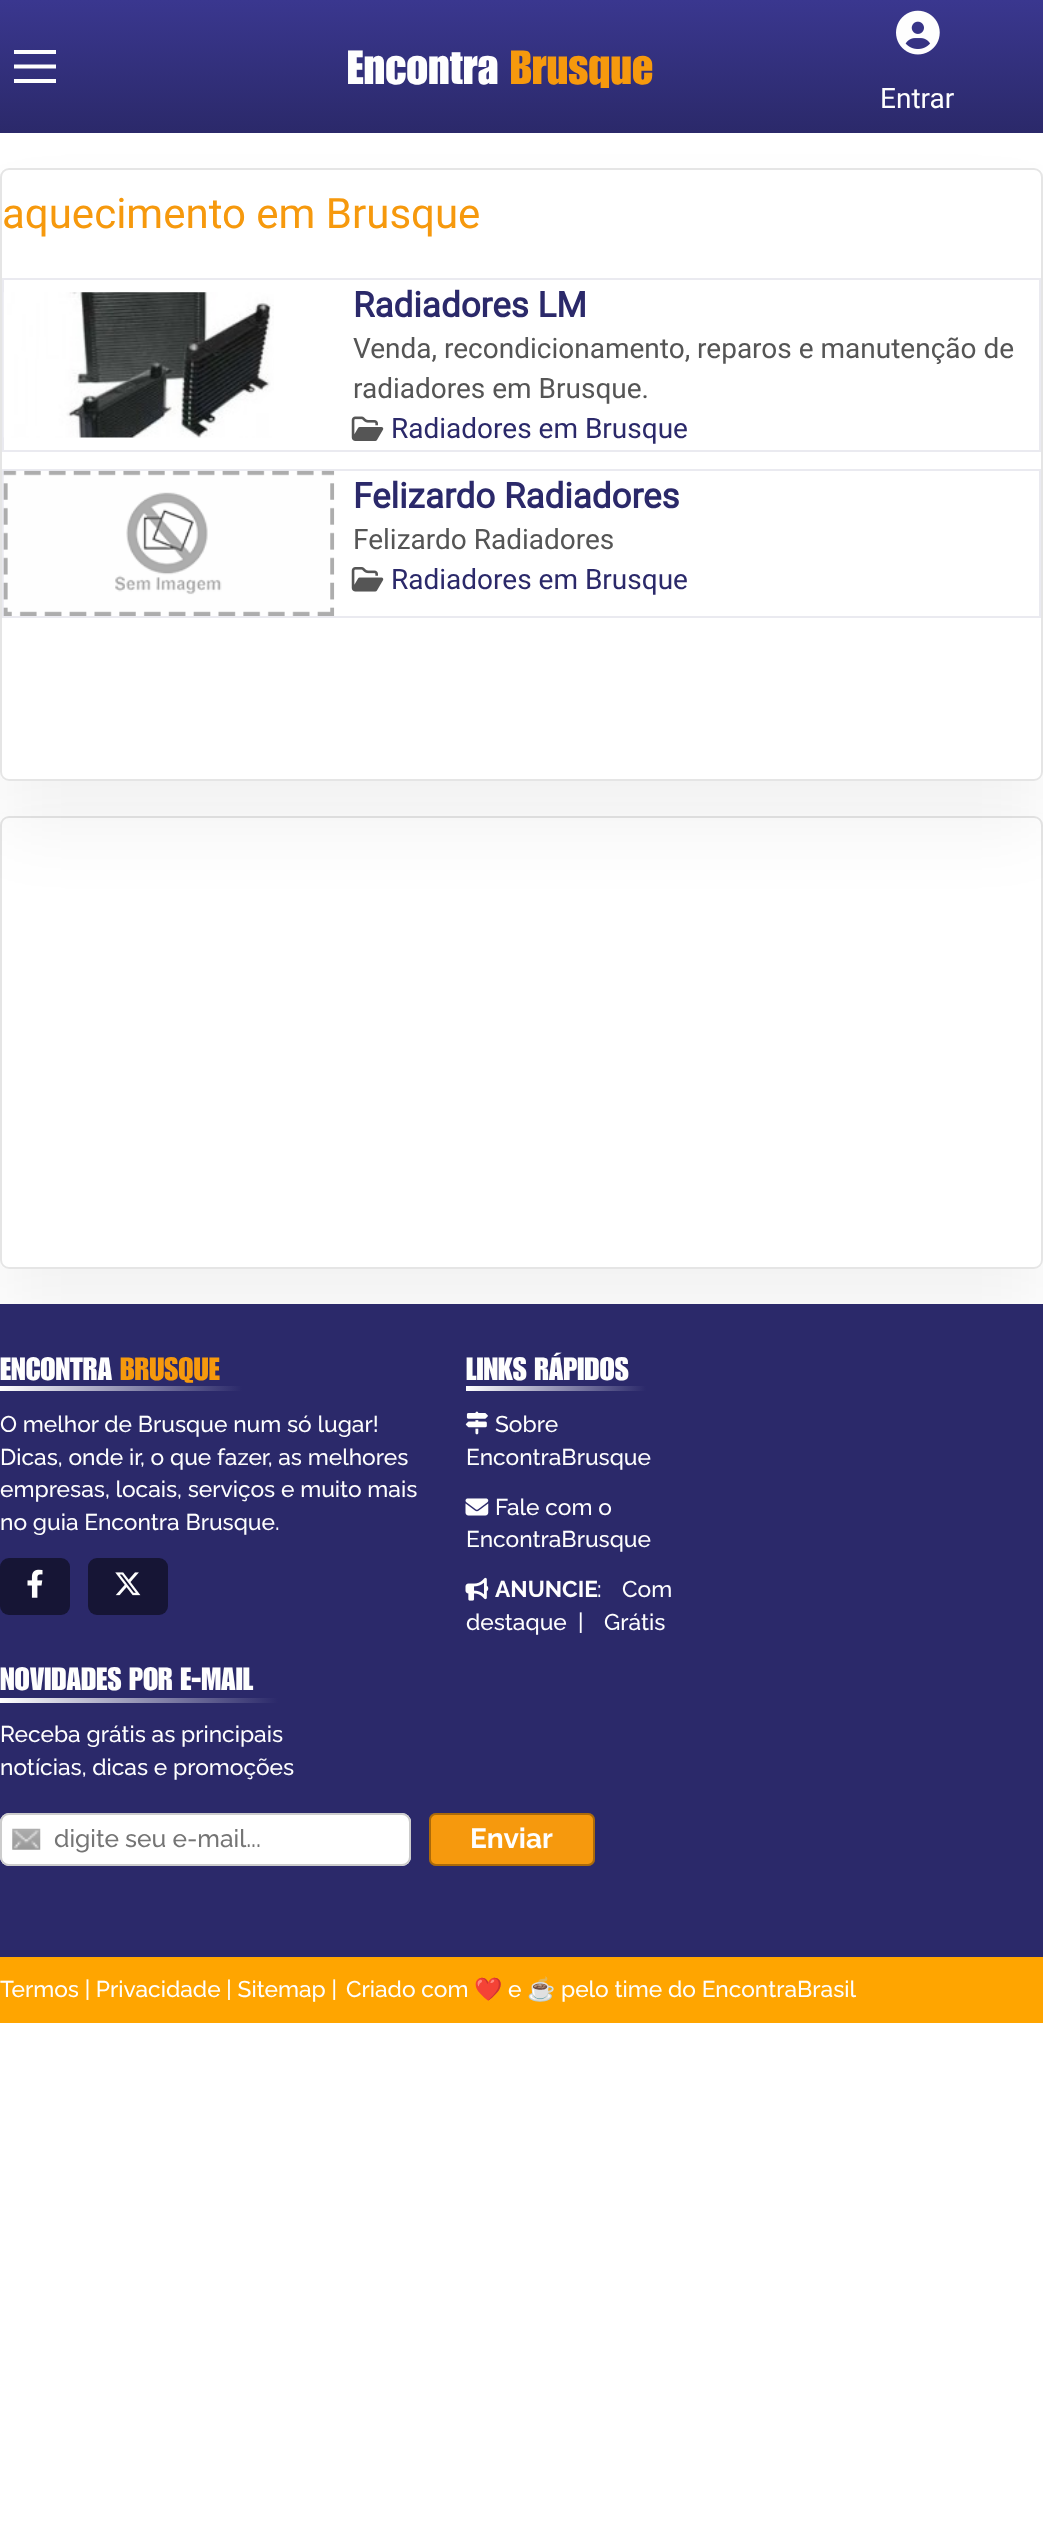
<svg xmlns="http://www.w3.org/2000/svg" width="1043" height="2521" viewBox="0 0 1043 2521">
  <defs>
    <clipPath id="clip1"><path d="M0 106H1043V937H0ZM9 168H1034C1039 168 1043 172 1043 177V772C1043 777 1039 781 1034 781H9C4 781 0 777 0 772V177C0 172 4 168 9 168Z" clip-rule="evenodd"/></clipPath>
    <linearGradient id="g1" gradientUnits="userSpaceOnUse" x1="522" y1="0" x2="522" y2="133"><stop offset="0" stop-color="#3a378f"/><stop offset="1" stop-color="#2b296a"/></linearGradient>
    <clipPath id="clip2"><path d="M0 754H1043V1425H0ZM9 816H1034C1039 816 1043 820 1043 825V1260C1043 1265 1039 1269 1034 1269H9C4 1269 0 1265 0 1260V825C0 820 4 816 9 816Z" clip-rule="evenodd"/></clipPath>
    <linearGradient id="g2" gradientUnits="userSpaceOnUse" x1="0" y1="1389" x2="242" y2="1389"><stop offset="0" stop-color="#fff"/><stop offset="1" stop-color="#2b296a"/></linearGradient>
    <linearGradient id="g3" gradientUnits="userSpaceOnUse" x1="466" y1="1389" x2="646" y2="1389"><stop offset="0" stop-color="#fff"/><stop offset="1" stop-color="#2b296a"/></linearGradient>
    <linearGradient id="g4" gradientUnits="userSpaceOnUse" x1="0" y1="1700" x2="278" y2="1700"><stop offset="0" stop-color="#fff"/><stop offset="1" stop-color="#2b296a"/></linearGradient>
  </defs>
  <rect width="100%" height="100%" fill="#fff"/>
  <g clip-path="url(#clip1)">
    <rect y="215" width="1043" height="613" rx="9" fill="#0000000d" filter="blur(36px)"/>
  </g>
  <path d="M0 0h1043v133H0z" fill="url(#g1)"/>
  <path d="M14 50h42v4H14z" fill="#fefefe"/>
  <path d="M14 66.5H56" fill="none" stroke="#fefefe" stroke-width="4.2"/>
  <path d="M14 79h42v4H14z" fill="#fefefe"/>
  <image x="896" y="10" width="44" height="45" href="img/1.png"/>
  <rect x="1" y="169" width="1041" height="611" rx="8" fill="none" stroke="#0000001a" stroke-width="2"/>
  <path d="M3 279h1037v172H3z" fill="none" stroke="#eaeaf0" stroke-width="2"/>
  <image x="3" y="292" width="271" height="146" href="img/2.png"/>
  <image x="351" y="416" width="33" height="25" href="img/3.png"/>
  <path d="M3 470h1037v147H3z" fill="none" stroke="#eaeaf0" stroke-width="2"/>
  <image x="3" y="470" width="332" height="146" href="img/4.png"/>
  <image x="351" y="567" width="33" height="25" href="img/5.png"/>
  <g clip-path="url(#clip2)">
    <rect y="863" width="1043" height="453" rx="9" fill="#0000000d" filter="blur(36px)"/>
  </g>
  <rect x="1" y="817" width="1041" height="451" rx="8" fill="none" stroke="#0000001a" stroke-width="2"/>
  <path d="M0 1304h1043v653H0z" fill="#2b296a"/>
  <path d="M0 1386h242v5H0z" fill="url(#g2)"/>
  <rect y="1558" width="70" height="57" rx="9" fill="#161535"/>
  <image x="27" y="1569" width="16" height="29" href="img/6.png"/>
  <rect x="88" y="1558" width="80" height="57" rx="9" fill="#161535"/>
  <image x="115" y="1572" width="26" height="24" href="img/7.png"/>
  <path d="M466 1386h180v5H466z" fill="url(#g3)"/>
  <image x="465" y="1411" width="23" height="24" href="img/8.png"/>
  <image x="465" y="1498" width="24" height="18" href="img/9.png"/>
  <image x="465" y="1577" width="24" height="24" href="img/10.png"/>
  <path d="M0 1698h278v5H0z" fill="url(#g4)"/>
  <rect y="1813" width="411" height="53" rx="9" fill="#fff"/>
  <image x="12" y="1828" width="29" height="22" href="img/11.png"/>
  <rect x="1" y="1814" width="409" height="51" rx="8" fill="none" stroke="#ccc" stroke-width="2"/>
  <rect x="429" y="1813" width="166" height="53" rx="7" fill="#f6990d"/>
  <rect x="430" y="1814" width="164" height="51" rx="6" fill="none" stroke="#0000004d" stroke-width="2"/>
  <path d="M0 1957h1043v66H0z" fill="#ffa500"/>
  <text x="347" y="84" font-family="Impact" font-size="47" font-weight="500" fill="#fefefe">Encontra</text>
  <text x="510" y="84" font-family="Impact" font-size="47" font-weight="500" fill="#f6990d">Brusque</text>
  <text x="880" y="108" font-family="Roboto" font-size="28" fill="#fefefe">Entrar</text>
  <text x="2" y="228" font-family="Roboto" font-size="42" fill="#f6990d">aquecimento em Brusque</text>
  <text x="353" y="317" font-family="Roboto" font-size="35" font-weight="bold" fill="#2b296a">Radiadores LM</text>
  <g font-family="Roboto" font-size="28" fill="#555">
    <text x="353" y="358">Venda, recondicionamento, reparos e manutenção de</text>
    <text x="353" y="398">radiadores em Brusque.</text>
  </g>
  <text x="391" y="438" font-family="Roboto" font-size="28" fill="#2b296a">Radiadores em Brusque</text>
  <text x="353" y="508" font-family="Roboto" font-size="35" font-weight="bold" fill="#2b296a">Felizardo Radiadores</text>
  <text x="353" y="549" font-family="Roboto" font-size="28" fill="#555">Felizardo Radiadores</text>
  <text x="391" y="589" font-family="Roboto" font-size="28" fill="#2b296a">Radiadores em Brusque</text>
  <text x="0" y="1380" font-family="Impact" font-size="31.5" font-weight="500" fill="#fefefe">ENCONTRA</text>
  <text x="120" y="1380" font-family="Impact" font-size="31.5" font-weight="500" fill="#f6990d">BRUSQUE</text>
  <g font-family="Raleway" font-size="22.75" font-weight="500" fill="#fefefe">
    <text x="0" y="1432">O melhor de Brusque num só lugar!</text>
    <text x="0" y="1465">Dicas, onde ir, o que fazer, as melhores</text>
    <text x="0" y="1497">empresas, locais, serviços e muito mais</text>
    <text x="0" y="1530">no guia Encontra Brusque.</text>
  </g>
  <text x="466" y="1380" font-family="Impact" font-size="31.5" font-weight="500" fill="#fefefe">LINKS RÁPIDOS</text>
  <g font-family="Raleway" font-size="22.75" font-weight="500" fill="#fefefe">
    <text x="495" y="1432">Sobre</text>
    <text x="466" y="1465">EncontraBrusque</text>
    <text x="495" y="1515">Fale com o</text>
    <text x="466" y="1547">EncontraBrusque</text>
  </g>
  <text x="495" y="1597" font-family="Raleway" font-size="22.75" font-weight="bold" fill="#fefefe">ANUNCIE</text>
  <g font-family="Raleway" font-size="22.75" font-weight="500" fill="#fefefe">
    <text x="597" y="1597">:</text>
    <text x="622" y="1597">Com</text>
    <text x="466" y="1630">destaque</text>
    <text x="578" y="1630">|</text>
    <text x="604" y="1630">Grátis</text>
  </g>
  <text x="0" y="1690" font-family="Impact" font-size="31.5" font-weight="500" fill="#fefefe">NOVIDADES POR E-MAIL</text>
  <g font-family="Raleway" font-size="22.75" font-weight="500" fill="#fefefe">
    <text x="0" y="1742">Receba grátis as principais</text>
    <text x="0" y="1775">notícias, dicas e promoções</text>
  </g>
  <text x="54" y="1847" font-family="Raleway" font-size="24.5" font-weight="500" fill="#757575">digite seu e-mail...</text>
  <text x="470" y="1848" font-family="Raleway" font-size="28" font-weight="bold" fill="#fefefe">Enviar</text>
  <g font-family="Raleway" font-size="22.75" font-weight="500" fill="#fefefe">
    <text x="0" y="1997">Termos | Privacidade | Sitemap |</text>
    <text x="346" y="1997">Criado com</text>
  </g>
  <text x="474" y="1997" font-family="Noto Color Emoji" font-size="22.75" fill="#fefefe">❤️</text>
  <text x="508" y="1997" font-family="Raleway" font-size="22.75" font-weight="500" fill="#fefefe">e</text>
  <text x="527" y="1997" font-family="Noto Color Emoji" font-size="22.75" fill="#fefefe">☕</text>
  <text x="561" y="1997" font-family="Raleway" font-size="22.75" font-weight="500" fill="#fefefe">pelo time do EncontraBrasil</text>
</svg>
